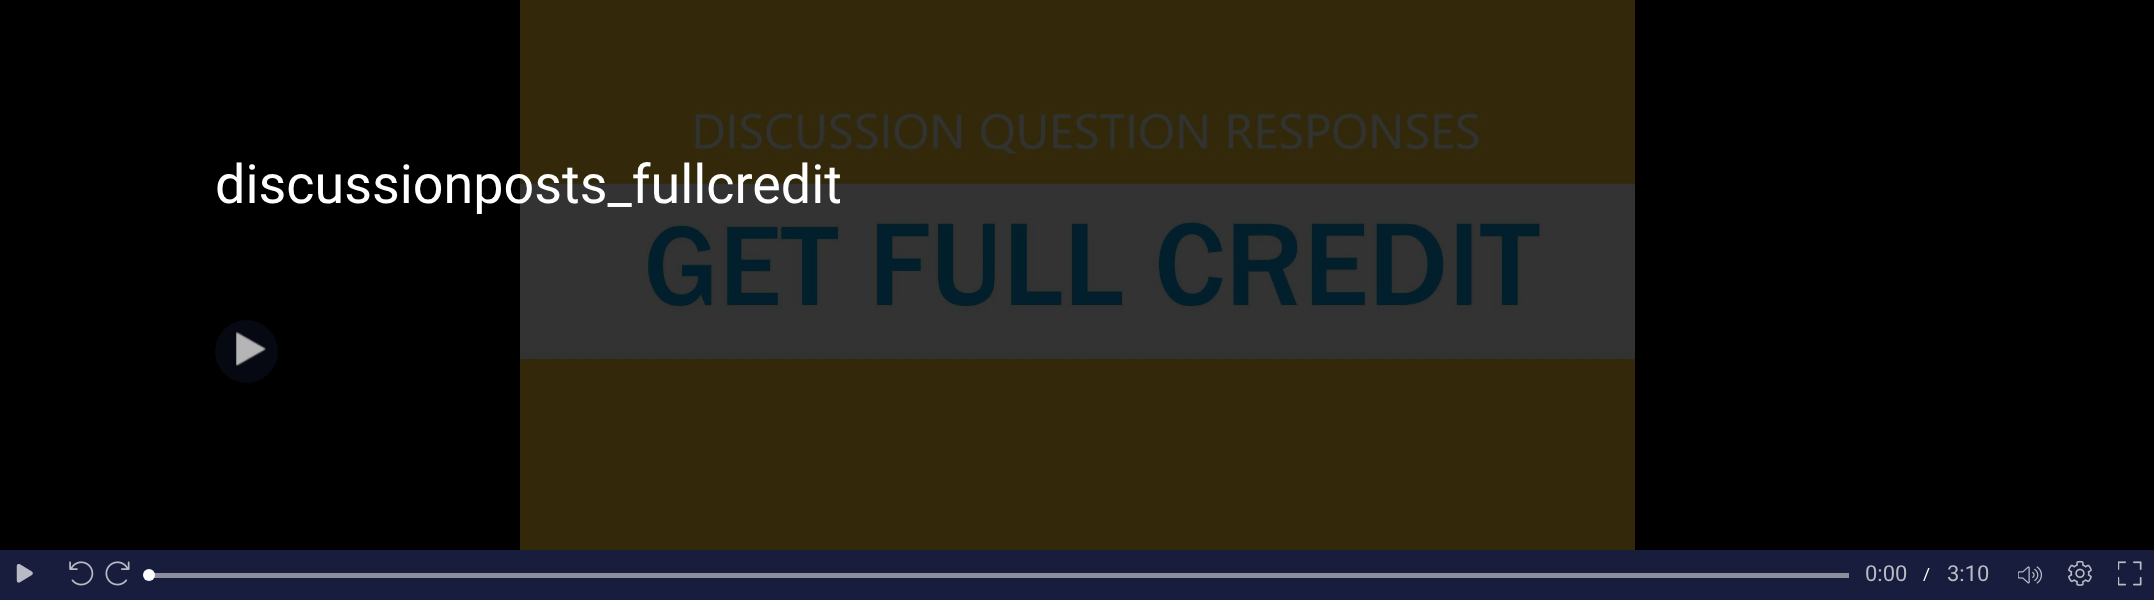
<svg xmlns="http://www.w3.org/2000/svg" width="2154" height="600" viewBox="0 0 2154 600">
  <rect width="100%" height="100%" fill="#000"/>
  <circle cx="246.5" cy="351.5" r="31.5" fill="#070912"/>
  <image x="236" y="332" width="30" height="34" href="img/1.png"/>
  <image x="520" y="0" width="1115" height="550" href="img/2.png"/>
  <path d="M0 550h1906v50H0z" fill="#181d3d"/>
  <image x="16" y="564" width="17" height="19" href="img/3.png"/>
  <path d="M1906 550h248v50H1906z" fill="#181d3d"/>
  <image x="2068" y="560" width="24" height="26" href="img/4.png"/>
  <image x="69" y="561" width="25" height="25" href="img/5.png"/>
  <image x="105" y="561" width="25" height="25" href="img/6.png"/>
  <path d="M149 573h1700v5H149z" fill="#8c8e9e"/>
  <circle cx="149" cy="575" r="6" fill="#fff"/>
  <image x="2018" y="566" width="24" height="18" href="img/7.png"/>
  <image x="2118" y="561" width="24" height="25" href="img/8.png"/>
  <text x="215" y="203" font-family="Roboto" font-size="53.9" fill="#fff">discussionposts_fullcredit</text>
  <text x="1865" y="581" font-family="Roboto" font-size="22" fill="#babbc5">0:00</text>
  <text x="1923" y="580" font-family="Roboto" font-size="17" fill="#fff">/</text>
  <text x="1947" y="581" font-family="Roboto" font-size="22" fill="#babbc5">3:10</text>
</svg>
